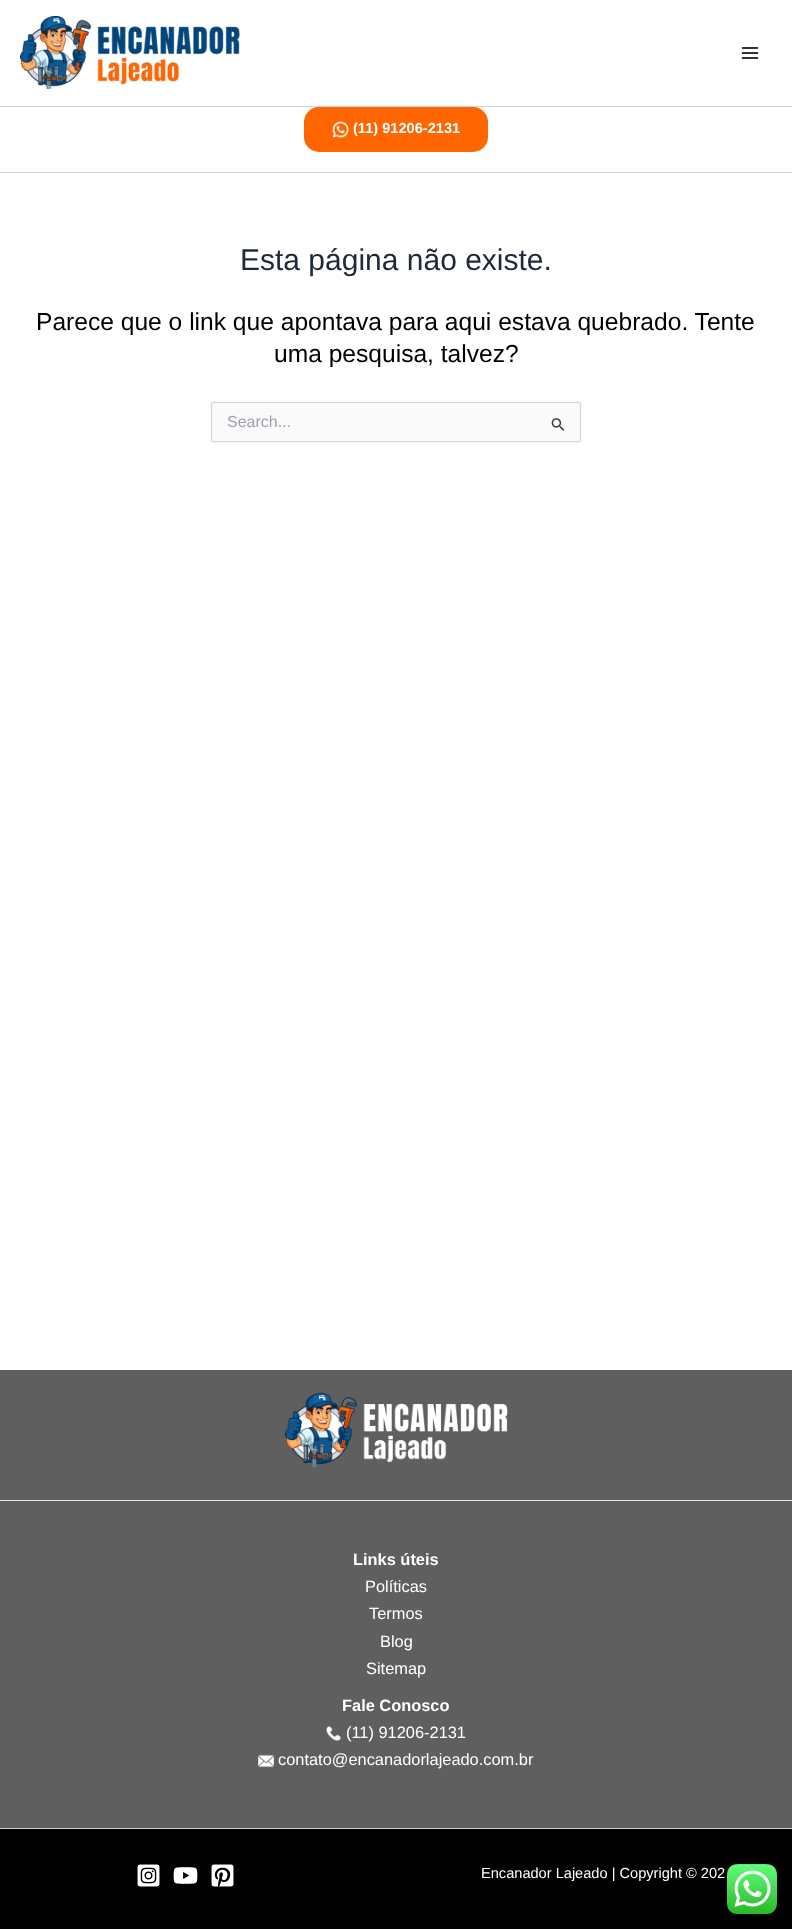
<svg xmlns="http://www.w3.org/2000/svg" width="792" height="1929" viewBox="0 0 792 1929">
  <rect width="100%" height="100%" fill="#fff"/>
  <path d="M0 106h792v1H0z" fill="#d1d5db"/>
  <image x="20" y="16" width="220" height="73" href="img/1.png"/>
  <image x="741" y="47" width="18" height="12" href="img/2.png"/>
  <path d="M0 172h792v1H0z" fill="#d1d5db"/>
  <rect x="304" y="107" width="184" height="45" rx="15" fill="#f60"/>
  <image x="332" y="121" width="17" height="17" href="img/3.png"/>
  <rect x="211" y="403" width="370" height="40" rx="2" fill="#0000000d" filter="blur(1px)"/>
  <rect x="211.5" y="402.5" width="369" height="39" rx="1.5" fill="#fafafa" stroke="#d1d5db"/>
  <image x="551" y="418" width="13" height="13" href="img/4.png"/>
  <path d="M0 1370h792v130H0z" fill="#5f5f5f"/>
  <image x="285" y="1392" width="223" height="76" href="img/5.png"/>
  <path d="M0 1501h792v327H0z" fill="#5f5f5f"/>
  <path d="M0 1500h792v1H0z" fill="#e6e6e6"/>
  <image x="326" y="1726" width="15" height="15" href="img/6.png"/>
  <image x="258" y="1754" width="16" height="14" href="img/7.png"/>
  <path d="M0 1829h792v100H0z" fill="#000"/>
  <path d="M0 1828h792v1H0z" fill="#d1d5db"/>
  <image x="137" y="1864" width="23" height="23" href="img/8.png"/>
  <image x="173" y="1867" width="25" height="17" href="img/9.png"/>
  <image x="211" y="1864" width="23" height="23" href="img/10.png"/>
  <image x="727" y="1864" width="50" height="50" href="img/11.png"/>
  <text x="353" y="133" font-family="Liberation Sans" font-size="14.6" font-weight="bold" fill="#fff">(11) 91206-2131</text>
  <text x="240" y="270" font-family="Liberation Sans" font-size="30" fill="#1e293b">Esta página não existe.</text>
  <g font-family="Liberation Sans" font-size="24.6" fill="#000">
    <text x="36" y="330">Parece que o link que apontava para aqui estava quebrado. Tente</text>
    <text x="274" y="362">uma pesquisa, talvez?</text>
  </g>
  <text x="227" y="427" font-family="Liberation Sans" font-size="16" fill="#9ca3af">Search...</text>
  <text x="353" y="1565" font-family="Liberation Sans" font-size="16.4" font-weight="bold" fill="#fff">Links úteis</text>
  <g font-family="Liberation Sans" font-size="16.4" fill="#fff">
    <text x="365" y="1592">Políticas</text>
    <text x="369" y="1619">Termos</text>
    <text x="380" y="1647">Blog</text>
    <text x="366" y="1674">Sitemap</text>
  </g>
  <text x="342" y="1711" font-family="Liberation Sans" font-size="16.4" font-weight="bold" fill="#fff">Fale Conosco</text>
  <g font-family="Liberation Sans" font-size="16.4" fill="#fff">
    <text x="346" y="1738">(11) 91206-2131</text>
    <text x="278" y="1765">contato@encanadorlajeado.com.br</text>
  </g>
  <text x="481" y="1878" font-family="Liberation Sans" font-size="14.6" fill="#fff">Encanador Lajeado | Copyright © 202</text>
</svg>
